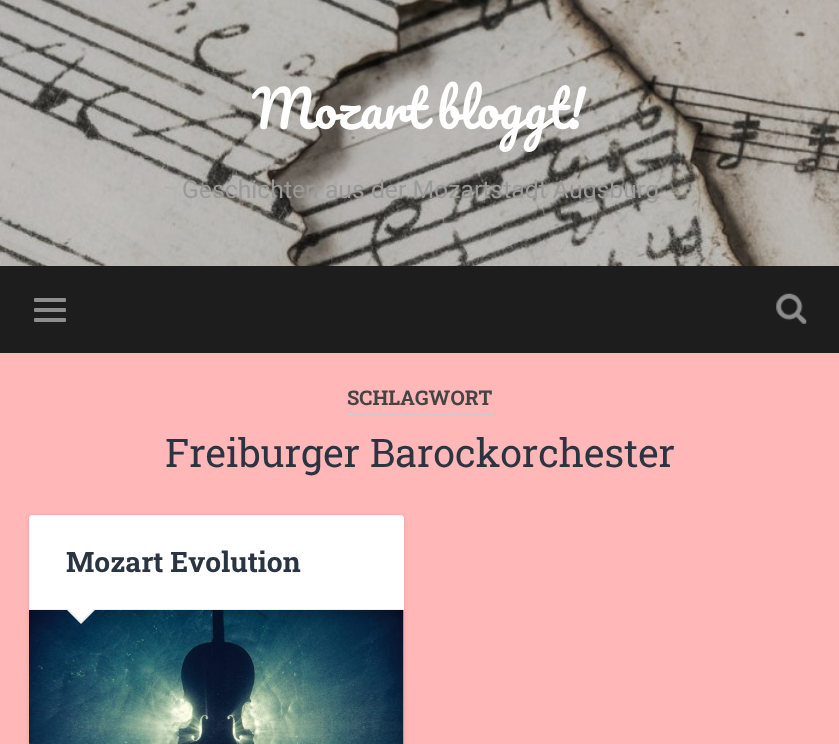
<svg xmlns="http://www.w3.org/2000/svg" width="839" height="744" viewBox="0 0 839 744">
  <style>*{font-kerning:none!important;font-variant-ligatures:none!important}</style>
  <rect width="100%" height="100%" fill="#ffb7b7"/>
  <image x="0" y="0" width="839" height="266" href="img/1.png"/>
  <path d="M0 266h839v87H0z" fill="#1d1d1d"/>
  <rect x="34" y="298" width="32" height="4" rx="1" fill="#8e8e8e"/>
  <rect x="34" y="308" width="32" height="4" rx="1" fill="#8e8e8e"/>
  <rect x="34" y="318" width="32" height="4" rx="1" fill="#8e8e8e"/>
  <image x="776" y="293" width="31" height="31" href="img/2.png"/>
  <path d="M348 413h145v3H348z" fill="#ccc"/>
  <rect x="29" y="516" width="375" height="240" rx="4" fill="#0000001a" filter="blur(2.5px)"/>
  <rect x="29" y="515" width="375" height="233" rx="4" fill="#fff"/>
  <path d="M29 609h375v1H29z" fill="#eee"/>
  <image x="29" y="610" width="375" height="134" href="img/3.png"/>
  <path d="M66 609H96L81 624Z" fill="#eee"/>
  <path d="M67.5 607.5H95L81 621Z" fill="#fff"/>
  <text x="252" y="129" word-spacing="-3" font-family="Pacifico" font-size="50.5" fill="#fff">Mozart bloggt!</text>
  <text x="182" y="198" font-family="Roboto" font-size="24.75" fill="#999">Geschichten aus der Mozartstadt Augsburg</text>
  <text x="347" y="405" font-family="Roboto Slab" font-size="20.25" font-weight="bold" fill="#444">SCHLAGWORT</text>
  <text x="165" y="467" font-family="Roboto Slab" font-size="39.4" fill="#2b3542">Freiburger Barockorchester</text>
  <text x="66" y="572" font-family="Roboto Slab" font-size="28.1" font-weight="bold" fill="#2b3542">Mozart Evolution</text>
</svg>
